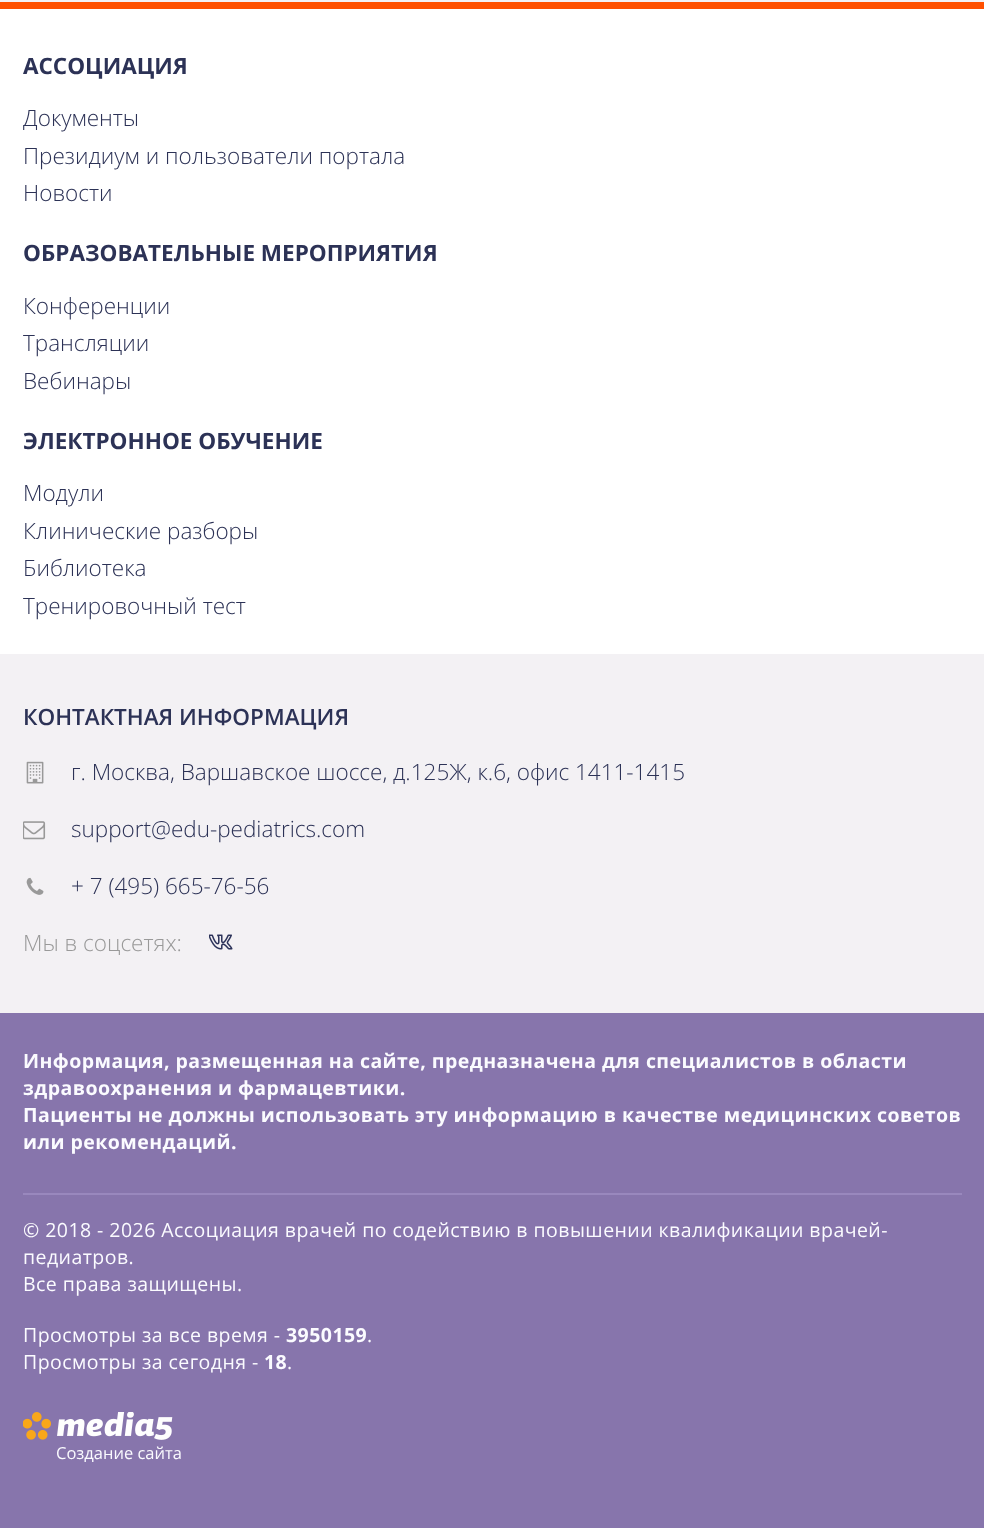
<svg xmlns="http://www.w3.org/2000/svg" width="984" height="1528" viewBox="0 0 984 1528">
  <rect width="100%" height="100%" fill="#f3f1f4"/>
  <path d="M0 9h984v645H0z" fill="#fff"/>
  <path d="M0 2h984v7H0z" fill="#ff5000"/>
  <image x="26" y="761" width="18" height="23" href="img/1.png"/>
  <image x="23" y="821" width="23" height="19" href="img/2.png"/>
  <image x="26" y="877" width="18" height="18" href="img/3.png"/>
  <image x="209" y="934" width="24" height="16" href="img/4.png"/>
  <path d="M0 1013h984v515H0z" fill="#8775ac"/>
  <path d="M23 1193h939v2H23z" fill="#9988bd"/>
  <image x="23" y="1412" width="150" height="28" href="img/5.png"/>
  <text x="23" y="74" font-family="Open Sans" font-size="22.5" font-weight="bold" fill="#2c3256">АССОЦИАЦИЯ</text>
  <g font-family="Open Sans" font-size="22.5" font-weight="300" fill="#2c3256">
    <text x="23" y="126">Документы</text>
    <text x="23" y="164">Президиум и пользователи портала</text>
    <text x="23" y="201">Новости</text>
  </g>
  <text x="23" y="261" font-family="Open Sans" font-size="22.5" font-weight="bold" fill="#2c3256">ОБРАЗОВАТЕЛЬНЫЕ МЕРОПРИЯТИЯ</text>
  <g font-family="Open Sans" font-size="22.5" font-weight="300" fill="#2c3256">
    <text x="23" y="314">Конференции</text>
    <text x="23" y="351">Трансляции</text>
    <text x="23" y="389">Вебинары</text>
  </g>
  <text x="23" y="449" font-family="Open Sans" font-size="22.5" font-weight="bold" fill="#2c3256">ЭЛЕКТРОННОЕ ОБУЧЕНИЕ</text>
  <g font-family="Open Sans" font-size="22.5" font-weight="300" fill="#2c3256">
    <text x="23" y="501">Модули</text>
    <text x="23" y="539">Клинические разборы</text>
    <text x="23" y="576">Библиотека</text>
    <text x="23" y="614">Тренировочный тест</text>
  </g>
  <text x="23" y="725" font-family="Open Sans" font-size="22.5" font-weight="600" fill="#2c3256">КОНТАКТНАЯ ИНФОРМАЦИЯ</text>
  <g font-family="Open Sans" font-size="22.5" font-weight="300" fill="#2c3256">
    <text x="71" y="780">г. Москва, Варшавское шоссе, д.125Ж, к.6, офис 1411-1415</text>
    <text x="71" y="837">support@edu-pediatrics.com</text>
    <text x="71" y="894">+ 7 (495) 665-76-56</text>
  </g>
  <text x="23" y="951" font-family="Open Sans" font-size="22.5" font-weight="300" fill="#999">Мы в соцсетях:</text>
  <g font-family="Open Sans" font-size="19.5" font-weight="bold" letter-spacing="0.45" fill="#fbfbff">
    <text x="23" y="1068">Информация, размещенная на сайте, предназначена для специалистов в области</text>
    <text x="23" y="1095">здравоохранения и фармацевтики.</text>
    <text x="23" y="1122">Пациенты не должны использовать эту информацию в качестве медицинских советов</text>
    <text x="23" y="1149">или рекомендаций.</text>
  </g>
  <g font-family="Open Sans" font-size="19.5" letter-spacing="0.45" fill="#fbfbff">
    <text x="23" y="1237">© 2018 - 2026 Ассоциация врачей по содействию в повышении квалификации врачей-</text>
    <text x="23" y="1264">педиатров.</text>
    <text x="23" y="1291">Все права защищены.</text>
    <text x="23" y="1342">Просмотры за все время -</text>
  </g>
  <text x="286" y="1342" font-family="Open Sans" font-size="19.5" font-weight="bold" letter-spacing="0.45" fill="#fbfbff">3950159</text>
  <g font-family="Open Sans" font-size="19.5" letter-spacing="0.45" fill="#fbfbff">
    <text x="367" y="1342">.</text>
    <text x="23" y="1369">Просмотры за сегодня -</text>
  </g>
  <text x="264" y="1369" font-family="Open Sans" font-size="19.5" font-weight="bold" letter-spacing="0.45" fill="#fbfbff">18</text>
  <text x="287" y="1369" font-family="Open Sans" font-size="19.5" letter-spacing="0.45" fill="#fbfbff">.</text>
  <text x="56" y="1459" font-family="Open Sans" font-size="16.5" fill="#fbfbff">Создание сайта</text>
</svg>
